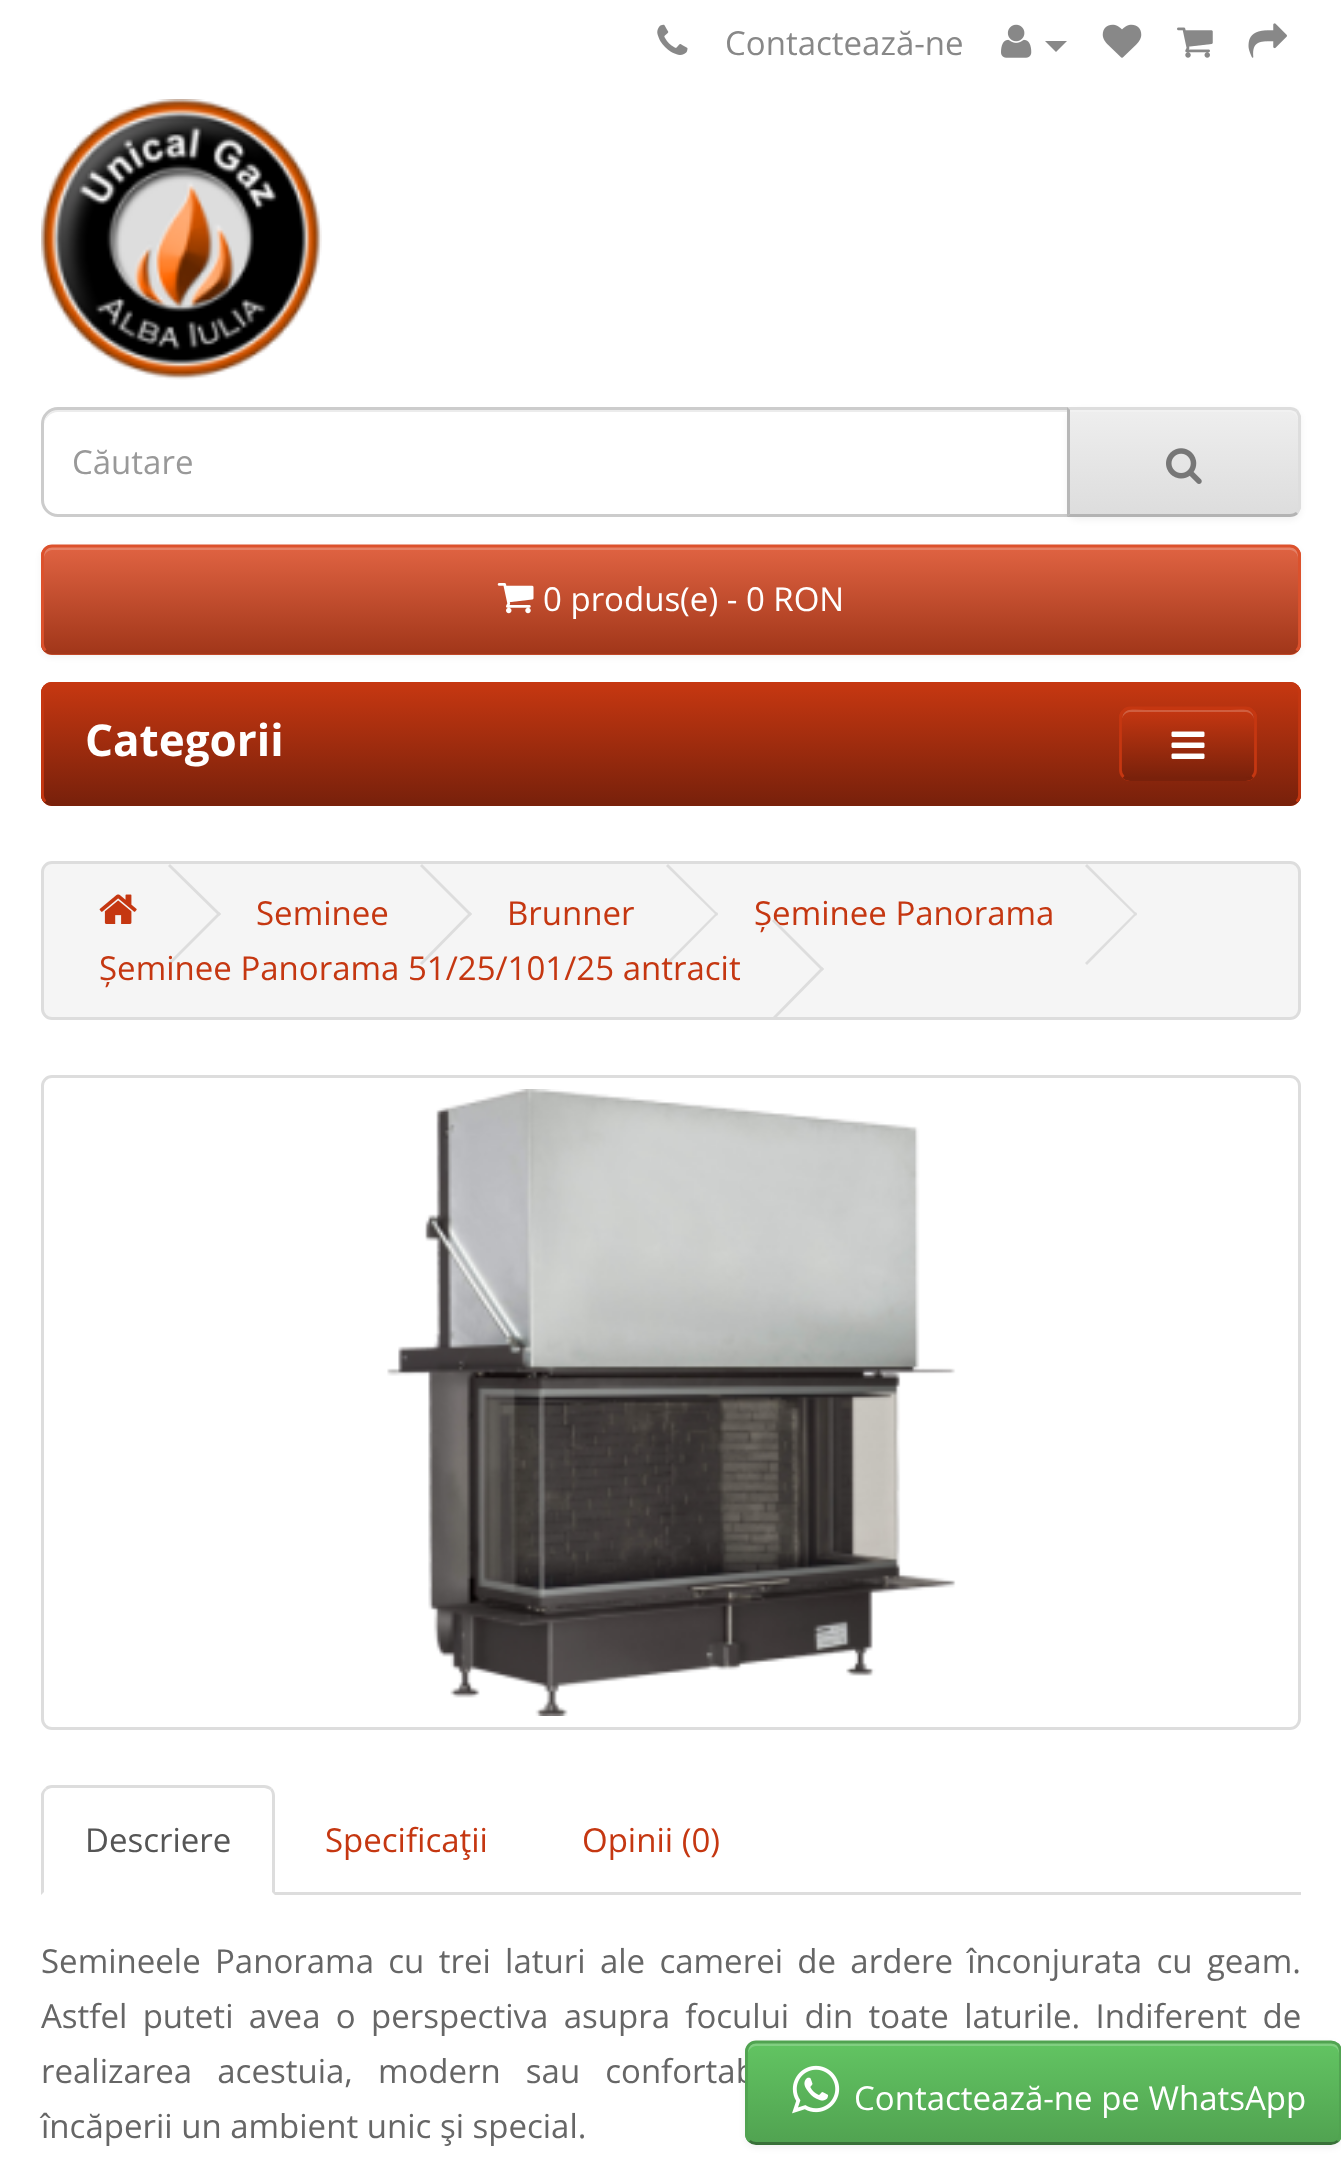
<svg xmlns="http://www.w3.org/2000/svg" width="1341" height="2170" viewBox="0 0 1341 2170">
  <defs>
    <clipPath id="clip1"><path d="M1067 407H1290C1296 407 1301 412 1301 418V506C1301 512 1296 517 1290 517H1067Z"/></clipPath>
    <linearGradient id="g1" gradientUnits="userSpaceOnUse" x1="1184" y1="410" x2="1184" y2="514"><stop offset="0" stop-color="#eee"/><stop offset="1" stop-color="#ddd"/></linearGradient>
    <clipPath id="clip2"><rect x="41" y="545" width="1260" height="110" rx="11"/></clipPath>
    <linearGradient id="g2" gradientUnits="userSpaceOnUse" x1="671" y1="547" x2="671" y2="652"><stop offset="0" stop-color="#e06342"/><stop offset="1" stop-color="#a2371a"/></linearGradient>
    <clipPath id="clip3"><rect x="41" y="682" width="1260" height="124" rx="11"/></clipPath>
    <linearGradient id="g3" gradientUnits="userSpaceOnUse" x1="671" y1="685" x2="671" y2="803"><stop offset="0" stop-color="#c53711"/><stop offset="1" stop-color="#79210b"/></linearGradient>
    <clipPath id="clip4"><rect x="1119" y="707" width="138" height="74" rx="11"/></clipPath>
    <linearGradient id="g4" gradientUnits="userSpaceOnUse" x1="1188" y1="710" x2="1188" y2="778"><stop offset="0" stop-color="#c53711"/><stop offset="1" stop-color="#79210b"/></linearGradient>
    <clipPath id="clip5"><rect x="745" y="2041" width="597" height="104" rx="11"/></clipPath>
    <linearGradient id="g5" gradientUnits="userSpaceOnUse" x1="1044" y1="2043" x2="1044" y2="2142"><stop offset="0" stop-color="#62c462"/><stop offset="1" stop-color="#51a351"/></linearGradient>
  </defs>
  <rect width="100%" height="100%" fill="#fff"/>
  <image x="657" y="24" width="31" height="31" href="img/1.png"/>
  <image x="1001" y="24" width="31" height="34" href="img/2.png"/>
  <path d="M1045 41H1067L1056 52Z" fill="#888"/>
  <image x="1102" y="24" width="40" height="34" href="img/3.png"/>
  <image x="1177" y="27" width="36" height="31" href="img/4.png"/>
  <image x="1248" y="23" width="39" height="35" href="img/5.png"/>
  <image x="41" y="99" width="281" height="281" href="img/6.png"/>
  <path d="M58 412H1067V410H58C49 410 44 418 44 426C44 419 50 412 58 412Z" fill="#ececec"/>
  <path d="M58 408.5H1068.5V515.5H58C49.5 515.5 42.5 508.5 42.5 500V424C42.5 415.5 49.5 408.5 58 408.5Z" fill="none" stroke="#ccc" stroke-width="3"/>
  <rect x="1067" y="410" width="234" height="110" rx="11" fill="#0000000d" filter="blur(3px)"/>
  <g clip-path="url(#clip1)">
    <path d="M1070 410h231v104H1070z" fill="url(#g1)"/>
  </g>
  <path d="M1070 412H1290C1294 412 1298 416 1298 421V418C1298 414 1294 410 1290 410H1070Z" fill="#f1f1f1"/>
  <path d="M1067 407L1070 410H1290C1292 410 1294 411 1296 412L1298 410C1296 408 1293 407 1290 407Z" fill="#ddd"/>
  <path d="M1301 508C1300 510 1299 512 1298 514L1296 512C1297 510 1298 508 1298 506V418C1298 416 1297 414 1296 412L1298 410C1299 412 1300 414 1301 416Z" fill="#ddd"/>
  <path d="M1290 517C1293 517 1296 516 1298 514L1296 512C1294 513 1292 514 1290 514H1070L1067 517Z" fill="#b3b3b3"/>
  <path d="M1067 407V517L1070 514V410Z" fill="#b7b7b7"/>
  <image x="1166" y="448" width="36" height="36" href="img/7.png"/>
  <rect x="41" y="547" width="1260" height="110" rx="11" fill="#0000000d" filter="blur(3px)"/>
  <rect x="41" y="545" width="1260" height="110" rx="11" fill="#df5c39"/>
  <g clip-path="url(#clip2)">
    <path d="M41 547h1260v105H41z" fill="url(#g2)"/>
  </g>
  <path d="M52 550H1290C1294 550 1298 554 1298 558V555C1298 551 1294 547 1290 547H52C48 547 44 551 44 555V558C44 554 48 550 52 550Z" fill="#ffffff33"/>
  <path d="M1296.5 650.5C1295 652 1292.5 653 1290 653H52C49.5 653 47 652 45.5 650.5" fill="none" stroke="#a2371a" stroke-width="2.8"/>
  <path d="M45.5 650.5C43.5 648.5 42.5 646 42.5 643.5V555.5C42.5 553 43.5 550.5 45.5 548.5C47 547 49.5 546 52 546H1290C1292.5 546 1295 547 1296.5 548.5C1298.5 550.5 1299.5 553 1299.5 555.5V643.5C1299.5 646 1298.5 648.5 1296.5 650.5" fill="none" stroke="#dc512c" stroke-width="2.8"/>
  <image x="497" y="583" width="37" height="31" href="img/8.png"/>
  <rect x="41" y="682" width="1260" height="124" rx="11" fill="#c53711"/>
  <g clip-path="url(#clip3)">
    <path d="M41 685h1260v118H41z" fill="url(#g3)"/>
  </g>
  <path d="M1296.5 801.5C1295 803.5 1292.5 804.5 1290 804.5H52C49.5 804.5 47 803.5 45.5 801.5" fill="none" stroke="#79210b" stroke-width="2.8"/>
  <path d="M45.5 801.5C43.5 800 42.5 797.5 42.5 795V693C42.5 690.5 43.5 688 45.5 686C47 684.5 49.5 683.5 52 683.5H1290C1292.5 683.5 1295 684.5 1296.5 686C1298.5 688 1299.5 690.5 1299.5 693V795C1299.5 797.5 1298.5 800 1296.5 801.5" fill="none" stroke="#c53711" stroke-width="2.8"/>
  <rect x="1119" y="707" width="138" height="74" rx="11" fill="#c53711"/>
  <g clip-path="url(#clip4)">
    <path d="M1119 710h138v68H1119z" fill="url(#g4)"/>
  </g>
  <path d="M1130 712H1246C1250 712 1254 716 1254 720C1254 705 1237 710 1227 710H1149C1139 710 1122 705 1122 720C1122 716 1126 712 1130 712Z" fill="#ffffff33"/>
  <path d="M1252.5 777C1251 778.5 1248.5 779.5 1246 779.5H1130C1127.5 779.5 1125 778.5 1123.5 777" fill="none" stroke="#79210b" stroke-width="2.8"/>
  <path d="M1123.5 777C1121.5 775 1120.5 772.5 1120.5 770V718C1120.5 715 1121.5 712.5 1123.5 711C1125 709 1127.5 708 1130 708H1246C1248.5 708 1251 709 1252.5 711C1254.5 712.5 1255.5 715 1255.5 718V770C1255.5 772.5 1254.5 775 1252.5 777" fill="none" stroke="#c53711" stroke-width="2.8"/>
  <image x="1171" y="731" width="34" height="28" href="img/9.png"/>
  <rect x="42.5" y="862.5" width="1257" height="156" rx="9.5" fill="#f5f5f5" stroke="#ddd" stroke-width="3"/>
  <image x="99" y="894" width="38" height="30" href="img/10.png"/>
  <path d="M168 866L170 864L221 914L219 916Z" fill="#ddd"/>
  <path d="M168 963L219 912L221 914L170 965Z" fill="#ddd"/>
  <path d="M420 866L422 864L472 914L470 916Z" fill="#ddd"/>
  <path d="M420 963L470 912L472 914L422 965Z" fill="#ddd"/>
  <path d="M666 866L668 864L718 914L717 916Z" fill="#ddd"/>
  <path d="M666 963L717 912L718 914L668 965Z" fill="#ddd"/>
  <path d="M1085 866L1087 864L1137 914L1136 916Z" fill="#ddd"/>
  <path d="M1085 963L1136 912L1137 914L1087 965Z" fill="#ddd"/>
  <rect x="42.5" y="1076.5" width="1257" height="652" rx="9.5" fill="none" stroke="#ddd" stroke-width="3"/>
  <image x="387" y="1089" width="569" height="627" href="img/11.png"/>
  <path d="M275 1892h1026v3H275z" fill="#ddd"/>
  <path d="M52 1785C49 1785 46 1786 45 1788L47 1790C48 1789 50 1788 52 1788H264C266 1788 268 1789 270 1790L272 1788C270 1786 267 1785 264 1785Z" fill="#ddd"/>
  <path d="M272 1788C274 1790 275 1793 275 1796V1895L272 1892V1796C272 1793 271 1791 270 1790Z" fill="#ddd"/>
  <path d="M41 1895L44 1892V1796C44 1793 45 1791 47 1790L45 1788C43 1790 42 1791 41 1794Z" fill="#ddd"/>
  <rect x="745" y="2043" width="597" height="105" rx="11" fill="#0000000d" filter="blur(3px)"/>
  <text x="725" y="55" font-family="Open Sans" font-size="33" fill="#888">Contactează-ne</text>
  <text x="72" y="474" font-family="Open Sans" font-size="33" fill="#999">Căutare</text>
  <text x="543" y="611" font-family="Open Sans" font-size="33" fill="#fff">0 produs(e) - 0 RON</text>
  <text x="85" y="756" font-family="Open Sans" font-size="44" font-weight="bold" fill="#fff">Categorii</text>
  <g font-family="Open Sans" font-size="33" fill="#c53711">
    <text x="256" y="925">Seminee</text>
    <text x="507" y="925">Brunner</text>
    <text x="754" y="925">Șeminee Panorama</text>
    <text x="99" y="980">Șeminee Panorama 51/25/101/25 antracit</text>
  </g>
  <path d="M772 921L774 919L824 969L822 971Z" fill="#ddd"/>
  <path d="M772 1018L822 967L824 969L774 1020Z" fill="#ddd"/>
  <text x="85" y="1852" font-family="Open Sans" font-size="33" fill="#555">Descriere</text>
  <g font-family="Open Sans" font-size="33" fill="#c53711">
    <text x="325" y="1852">Specificaţii</text>
    <text x="582" y="1852">Opinii (0)</text>
  </g>
  <g font-family="Open Sans" font-size="33" fill="#666">
    <text x="41" y="1973" word-spacing="5.75">Semineele Panorama cu trei laturi ale camerei de ardere înconjurata cu geam.</text>
    <text x="41" y="2028" word-spacing="6.75">Astfel puteti avea o perspectiva asupra focului din toate laturile. Indiferent de</text>
    <text x="41" y="2083" word-spacing="16.5">realizarea acestuia, modern sau confortab</text>
    <text x="41" y="2138">încăperii un ambient unic şi special.</text>
  </g>
  <g clip-path="url(#clip5)">
    <path d="M745 2043h596v99H745z" fill="url(#g5)"/>
  </g>
  <path d="M756 2046H1331C1336 2046 1339 2050 1339 2054V2051C1339 2047 1335 2043 1331 2043H756C752 2043 748 2047 748 2051V2054C748 2050 752 2046 756 2046Z" fill="#ffffff33"/>
  <path d="M1338 2141C1336 2142.5 1333.5 2143.5 1331 2143.5H756C753.5 2143.5 751 2142.5 749.5 2141" fill="none" stroke="#387038" stroke-width="2.8"/>
  <path d="M749.5 2141C747.5 2139 746.5 2136.5 746.5 2134V2051.5C746.5 2049 747.5 2046.5 749.5 2044.5C751 2043 753.5 2042 756 2042H1331C1333.5 2042 1336 2043 1338 2044.5C1339.5 2046.5 1340.5 2049 1340.5 2051.5V2134C1340.5 2136.5 1339.5 2139 1338 2141" fill="none" stroke="#51a351" stroke-width="2.8"/>
  <image x="792" y="2065" width="48" height="49" href="img/12.png"/>
  <text x="854" y="2110" font-family="Open Sans" font-size="33" fill="#fff">Contactează-ne pe WhatsApp</text>
</svg>
